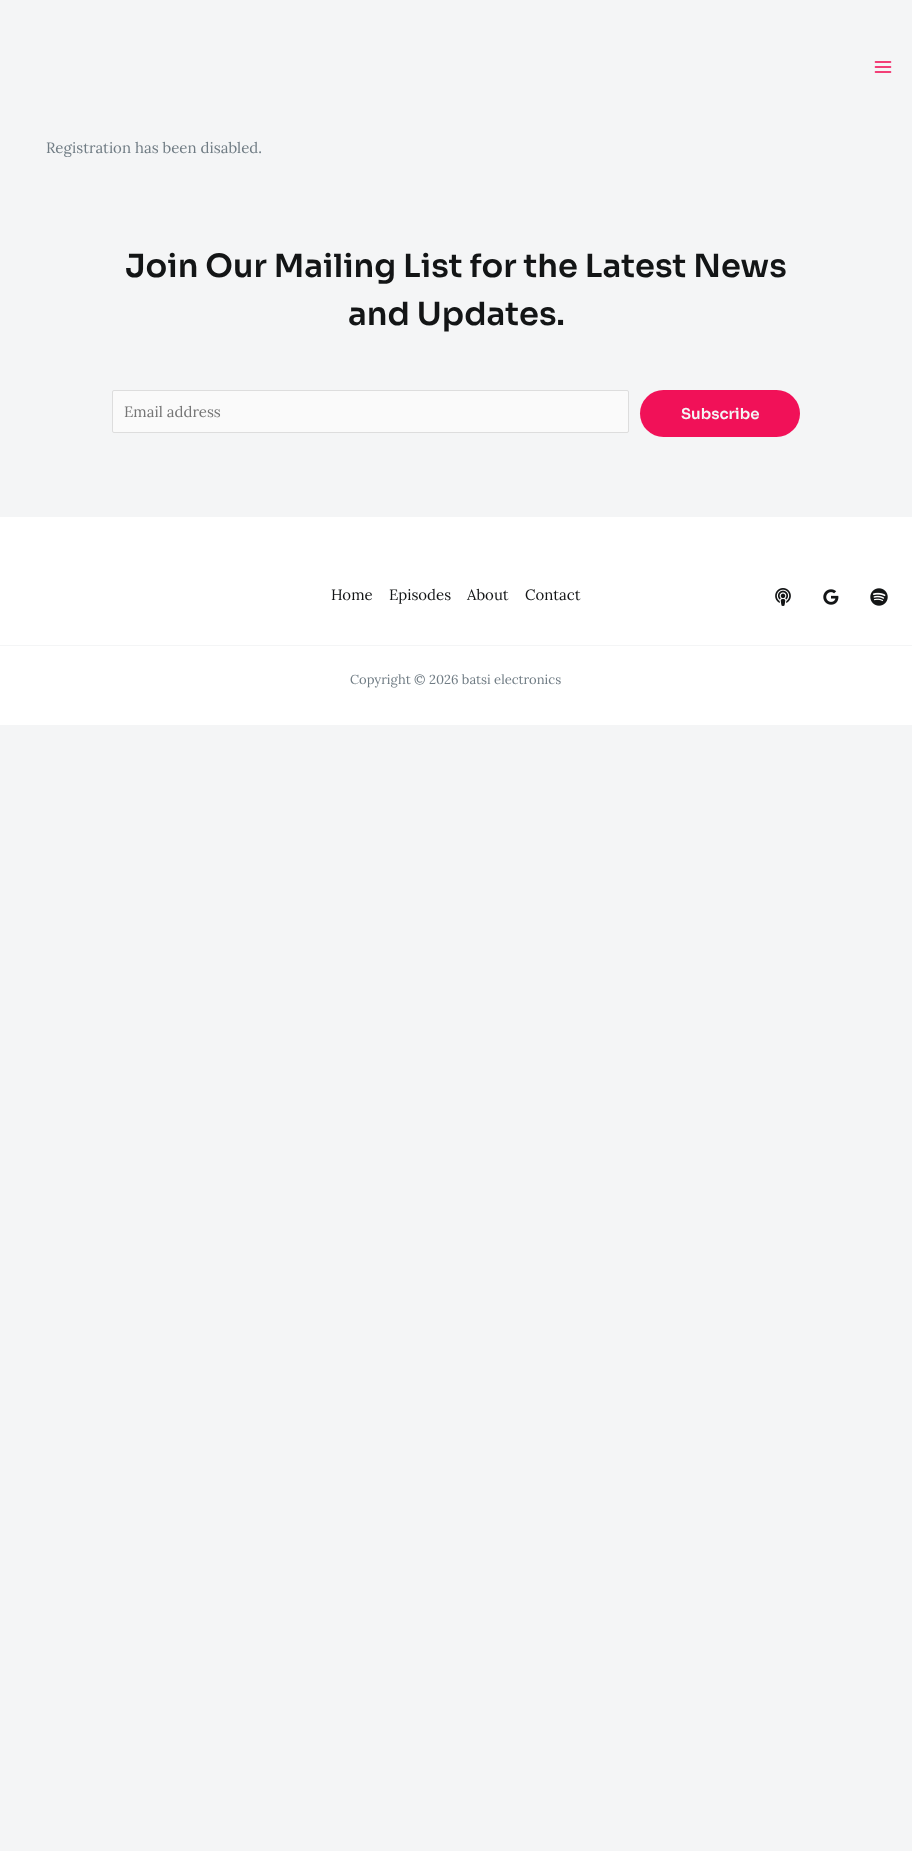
<svg xmlns="http://www.w3.org/2000/svg" width="912" height="1851" viewBox="0 0 912 1851">
  <rect width="100%" height="100%" fill="#f4f5f6"/>
  <image x="874" y="61" width="18" height="12" href="img/1.png"/>
  <rect x="112.5" y="390.5" width="516" height="42" rx="1.5" fill="#fafafa" stroke="#ddd"/>
  <rect x="640" y="390" width="160" height="47" rx="23.5" fill="#f11158"/>
  <path d="M0 517h912v128H0z" fill="#fff"/>
  <image x="775" y="588" width="16" height="18" href="img/2.png"/>
  <image x="823" y="589" width="16" height="16" href="img/3.png"/>
  <image x="870" y="588" width="18" height="18" href="img/4.png"/>
  <path d="M0 646h912v79H0z" fill="#fff"/>
  <text x="46" y="153" font-family="Lora" font-size="15" fill="#707c84">Registration has been disabled.</text>
  <g font-family="Sora" font-size="32" font-weight="600" fill="#131516">
    <text x="125" y="277">Join Our Mailing List for the Latest News</text>
    <text x="348" y="325">and Updates.</text>
  </g>
  <text x="124" y="417" font-family="Lora" font-size="15" fill="#757575">Email address</text>
  <text x="681" y="419" font-family="Sora" font-size="15" font-weight="600" fill="#f4f5f6">Subscribe</text>
  <g font-family="Lora" font-size="15" fill="#131516">
    <text x="331" y="600">Home</text>
    <text x="389" y="600">Episodes</text>
    <text x="467" y="600">About</text>
    <text x="525" y="600">Contact</text>
  </g>
  <text x="350" y="684" font-family="Lora" font-size="13" fill="#707c84">Copyright © 2026 batsi electronics</text>
</svg>
